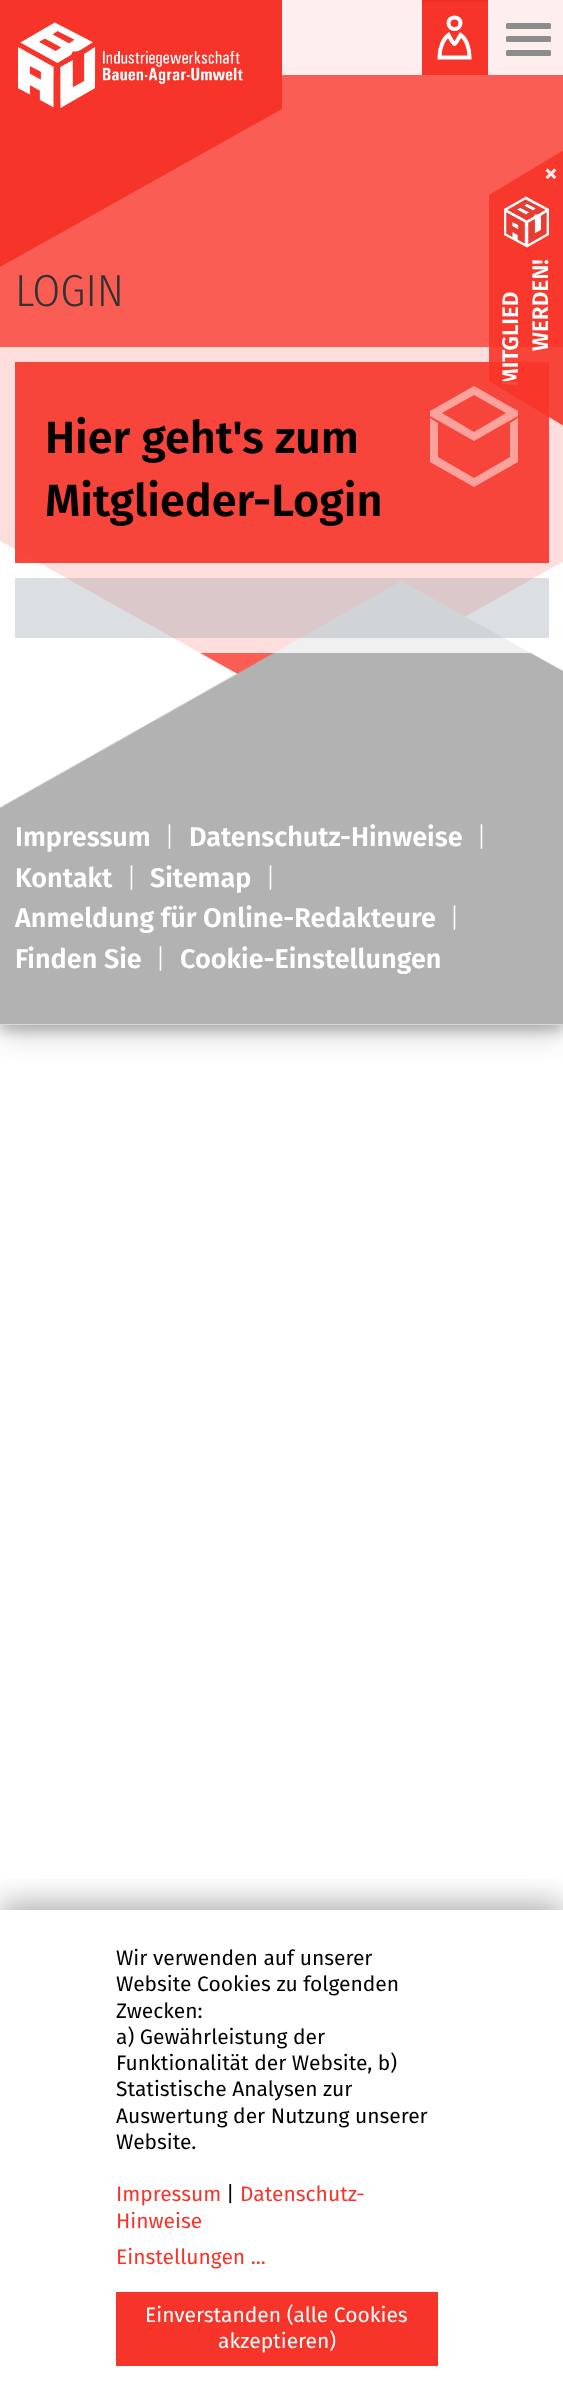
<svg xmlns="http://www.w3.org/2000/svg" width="563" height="2397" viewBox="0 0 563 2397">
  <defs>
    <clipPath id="clip1"><path d="M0 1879h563v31H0z"/></clipPath>
  </defs>
  <rect width="100%" height="100%" fill="#fff"/>
  <path d="M0 9h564v1025H0z" fill="#00000030" filter="blur(15px)"/>
  <path d="M0 6h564v1025H0z" fill="#00000033" filter="blur(6px)"/>
  <path d="M0 541h563v484H0z" fill="#fff"/>
  <path d="M-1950-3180L300-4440L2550-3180V-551L300 709L-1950-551Z" fill="#f95d54" fill-rule="evenodd"/>
  <path d="M-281-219L0-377L282-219V109L0 267L-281 109Z" fill="#f73429" fill-rule="evenodd"/>
  <image x="18" y="22" width="225" height="86" href="img/1.png"/>
  <path d="M282 0h281v75H282z" fill="#feefee"/>
  <path d="M422 2h66v73H422z" fill="#f73429"/>
  <path d="M422 0h66v2H422z" fill="#eb3127"/>
  <path d="M460.5 23C460.5 31 448.5 31 448.5 23C448.5 15.5 460.5 15.5 460.5 23ZM460.5 35C453.5 47 455.5 47 448.5 35C443.5 38.5 439.5 47.5 439.5 57.5H469.5C469.5 47.5 466 38.5 460.5 35Z" fill="none" stroke="#fff" stroke-width="4"/>
  <rect x="506" y="23" width="45" height="6" rx="1.5" fill="#8c8c8c"/>
  <rect x="506" y="36" width="45" height="6" rx="1.5" fill="#8c8c8c"/>
  <rect x="506" y="50" width="45" height="6" rx="1.5" fill="#8c8c8c"/>
  <path d="M0 347h563v231H0z" fill="#ffffffcc"/>
  <path d="M15 362h534v201H15z" fill="#f73429e6"/>
  <path d="M474 386L430 411V416L474 441L518 416V411ZM474 432L442 413L474 395L506 413Z" fill="#fba29d"/>
  <path d="M510 423V457L474 478L438 457V423L430 418V462L474 487L518 462V418Z" fill="#fba29d"/>
  <image x="0" y="581" width="563" height="444" href="img/3.png"/>
  <path d="M66 578h468v75H66z" fill="#ffffffcc"/>
  <path d="M15 578h534v60H15z" fill="#8c96a04d"/>
  <path d="M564 195H489L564 150Z" fill="#f7382d"/>
  <path d="M489 195h74v186H489z" fill="#f73429e6"/>
  <image x="504" y="196" width="45" height="52" href="img/2.png"/>
  <g clip-path="url(#clip1)">
    <path d="M0 1902h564v488H0z" fill="#0000004d" filter="blur(15px)"/>
  </g>
  <path d="M116 2292h322v74H116z" fill="#f73429"/>
  <text x="15" y="306" font-family="Fira Sans Condensed" font-size="45" font-weight="300" fill="#333">LOGIN</text>
  <g font-family="Fira Sans" font-size="45" font-weight="600" fill="#000">
    <text x="45" y="453">Hier geht's zum</text>
    <text x="45" y="516">Mitglieder-Login</text>
  </g>
  <text x="544" y="182" font-family="Fira Sans" font-size="27" font-weight="600" fill="#feefee">×</text>
  <g font-family="Fira Sans" font-size="22.5" font-weight="600" fill="#fff">
    <text x="518" y="386" transform="rotate(-90 518 386)">MITGLIED</text>
    <text x="548" y="351" transform="rotate(-90 548 351)">WERDEN!</text>
  </g>
  <path d="M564 381V426L489 381Z" fill="#f73429e6"/>
  <text x="15" y="846" font-family="Fira Sans" font-size="27" font-weight="600" fill="#fff">Impressum</text>
  <text x="164" y="846" font-family="Fira Sans" font-size="27" font-weight="300" fill="#fff">|</text>
  <text x="189" y="846" font-family="Fira Sans" font-size="27" font-weight="600" fill="#fff">Datenschutz-Hinweise</text>
  <text x="476" y="846" font-family="Fira Sans" font-size="27" font-weight="300" fill="#fff">|</text>
  <text x="15" y="887" font-family="Fira Sans" font-size="27" font-weight="600" fill="#fff">Kontakt</text>
  <text x="126" y="887" font-family="Fira Sans" font-size="27" font-weight="300" fill="#fff">|</text>
  <text x="150" y="887" font-family="Fira Sans" font-size="27" font-weight="600" fill="#fff">Sitemap</text>
  <text x="265" y="887" font-family="Fira Sans" font-size="27" font-weight="300" fill="#fff">|</text>
  <text x="15" y="927" font-family="Fira Sans" font-size="27" font-weight="600" fill="#fff">Anmeldung für Online-Redakteure</text>
  <text x="449" y="927" font-family="Fira Sans" font-size="27" font-weight="300" fill="#fff">|</text>
  <text x="15" y="968" font-family="Fira Sans" font-size="27" font-weight="600" fill="#fff">Finden Sie</text>
  <text x="155" y="968" font-family="Fira Sans" font-size="27" font-weight="300" fill="#fff">|</text>
  <text x="180" y="968" font-family="Fira Sans" font-size="27" font-weight="600" fill="#fff">Cookie-Einstellungen</text>
  <g font-family="Fira Sans" font-size="21" fill="#000">
    <text x="116" y="1965">Wir verwenden auf unserer</text>
    <text x="116" y="1991">Website Cookies zu folgenden</text>
    <text x="116" y="2018">Zwecken:</text>
    <text x="116" y="2044">a) Gewährleistung der</text>
    <text x="116" y="2070">Funktionalität der Website, b)</text>
    <text x="116" y="2096">Statistische Analysen zur</text>
    <text x="116" y="2123">Auswertung der Nutzung unserer</text>
    <text x="116" y="2149">Website.</text>
  </g>
  <text x="116" y="2201" font-family="Fira Sans" font-size="21" fill="#f73429">Impressum</text>
  <text x="226" y="2201" font-family="Fira Sans" font-size="21" fill="#000">|</text>
  <g font-family="Fira Sans" font-size="21" fill="#f73429">
    <text x="240" y="2201">Datenschutz-</text>
    <text x="116" y="2228">Hinweise</text>
    <text x="116" y="2264">Einstellungen ...</text>
  </g>
  <g font-family="Fira Sans" font-size="21" fill="#fff">
    <text x="145" y="2322">Einverstanden (alle Cookies</text>
    <text x="218" y="2348">akzeptieren)</text>
  </g>
</svg>
